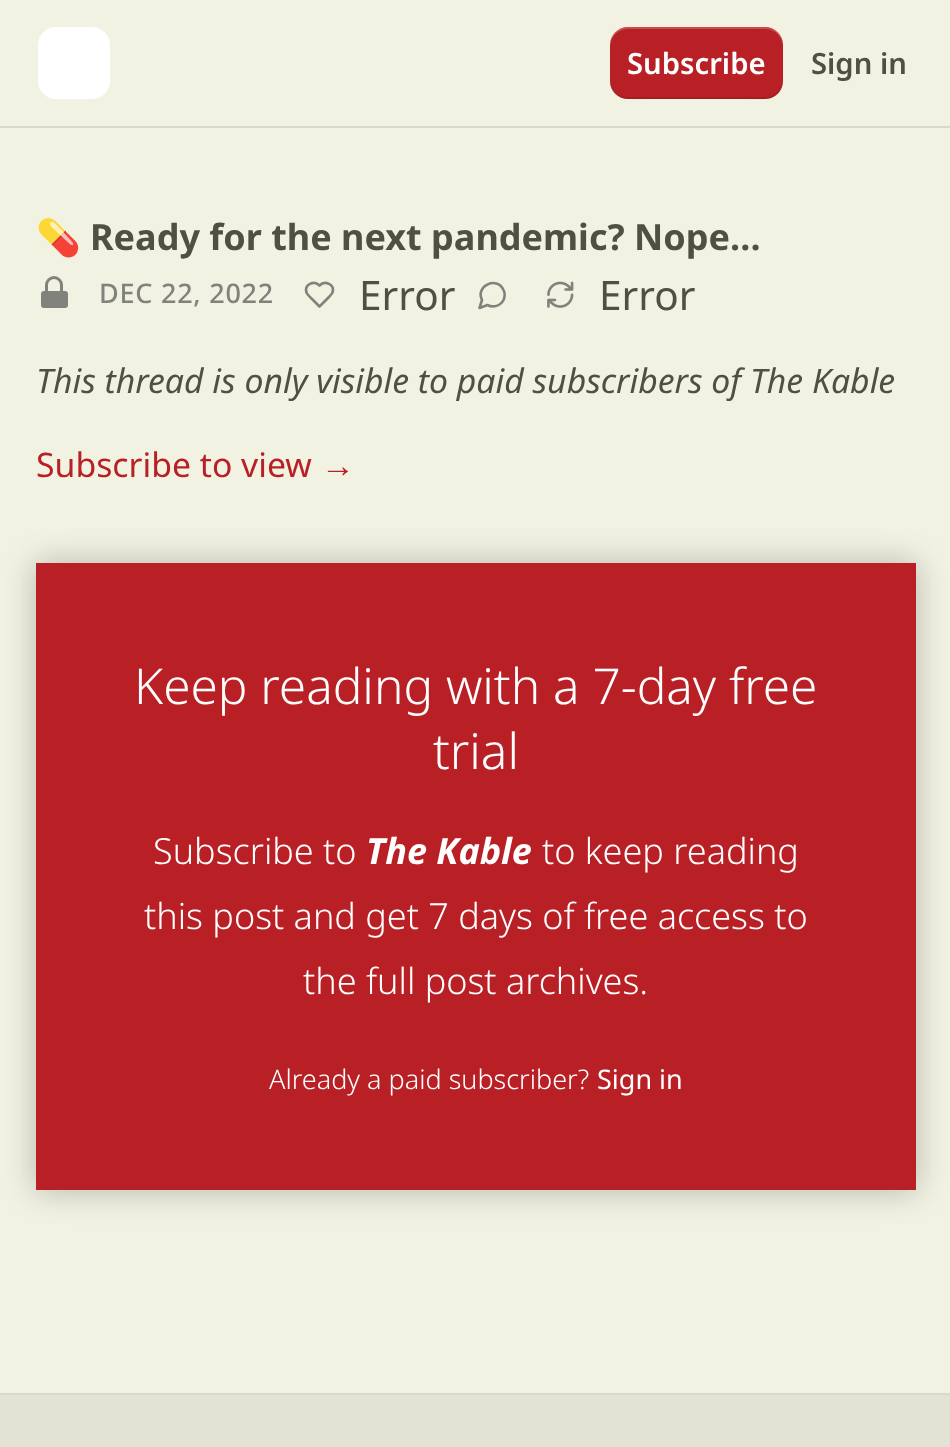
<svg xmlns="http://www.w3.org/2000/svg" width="950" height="1447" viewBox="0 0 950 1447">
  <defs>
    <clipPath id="clip1"><path d="M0 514H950V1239H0ZM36 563H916V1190H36Z" clip-rule="evenodd"/></clipPath>
  </defs>
  <rect width="100%" height="100%" fill="#f2f2e3"/>
  <path d="M0 126h950v2H0z" fill="#dadacc"/>
  <rect x="38" y="27" width="72" height="72" rx="18" fill="#fff"/>
  <rect x="610" y="27" width="173" height="72" rx="18" fill="#b92025"/>
  <path d="M610 79C610 104 633 99 651 99H742C760 99 783 104 783 79C783 89 775 97 765 97H628C618 97 610 89 610 79Z" fill="#0000001a"/>
  <path d="M628 29H765C775 29 783 37 783 47C783 22 760 27 742 27H651C633 27 610 22 610 47C610 37 618 29 628 29Z" fill="#ffffff33"/>
  <rect x="41" y="291" width="27" height="17" rx="3" fill="#81827c"/>
  <path d="M46.5 291V285C46.5 281 50 277.5 54 277.5C58 277.5 61.5 281 61.5 285V291" fill="none" stroke="#81827c" stroke-width="3" stroke-linecap="round" stroke-linejoin="round"/>
  <path d="M328.5 297.5C330 296 331.5 294.5 332.5 292.5C335 284.5 325 280 319.5 285.5C314 280 304 284.5 306.5 292.5C308 295.5 311 298 313.5 300.5L319.5 306.5Z" fill="none" stroke="#81827c" stroke-width="2.6" stroke-linecap="round" stroke-linejoin="round"/>
  <path d="M487.5 305C493 308 500.5 306 503.5 300C505 296.5 505 293 503.5 290C497 275.5 475 286 482 300L479.5 308Z" fill="none" stroke="#81827c" stroke-width="2.6" stroke-linecap="round" stroke-linejoin="round"/>
  <image x="547" y="281" width="27" height="27" href="img/1.png"/>
  <path d="M36 563h880v627H36z" fill="#b92025"/>
  <g clip-path="url(#clip1)">
    <path d="M36 563h880v627H36z" fill="#00000040" filter="blur(16px)"/>
  </g>
  <path d="M0 1395h950v52H0z" fill="#e3e3d5"/>
  <path d="M0 1393h950v2H0z" fill="#dadacc"/>
  <text x="627" y="74" font-family="Noto Sans" font-size="29.25" font-weight="600" fill="#fff">Subscribe</text>
  <text x="811" y="74" font-family="Noto Sans" font-size="29.25" font-weight="600" fill="#505041">Sign in</text>
  <text x="36" y="250" font-family="Noto Color Emoji" font-size="36" font-weight="bold" fill="#505041">💊</text>
  <text x="90" y="250" font-family="Noto Sans" font-size="36" font-weight="bold" fill="#505041">Ready for the next pandemic? Nope…</text>
  <text x="99" y="303" font-family="Noto Sans" font-size="27" font-weight="500" letter-spacing="0.75" fill="#81827c">DEC 22, 2022</text>
  <g font-family="Noto Sans" font-size="40.5" fill="#505041">
    <text x="359" y="310">Error</text>
    <text x="599" y="310">Error</text>
  </g>
  <text x="36" y="393" font-family="Noto Sans" font-size="33.75" font-style="italic" fill="#505041">This thread is only visible to paid subscribers of The Kable</text>
  <text x="36" y="477" font-family="Noto Sans" font-size="33.75" fill="#b92025">Subscribe to view</text>
  <text x="321" y="477" font-family="Liberation Sans" font-size="33.75" fill="#b92025">→</text>
  <g font-family="Noto Sans" font-size="49.5" font-weight="300" fill="#fff">
    <text x="134" y="704">Keep reading with a 7-day free</text>
    <text x="433" y="769">trial</text>
  </g>
  <text x="153" y="864" font-family="Noto Sans" font-size="36" font-weight="300" fill="#fff">Subscribe to</text>
  <text x="366" y="864" font-family="Noto Sans" font-size="36" font-weight="bold" font-style="italic" fill="#fff">The Kable</text>
  <g font-family="Noto Sans" font-size="36" font-weight="300" fill="#fff">
    <text x="542" y="864">to keep reading</text>
    <text x="144" y="929">this post and get 7 days of free access to</text>
    <text x="303" y="994">the full post archives.</text>
  </g>
  <text x="269" y="1089" font-family="Noto Sans" font-size="27" font-weight="300" fill="#fff">Already a paid subscriber?</text>
  <text x="597" y="1089" font-family="Noto Sans" font-size="27" fill="#fff">Sign in</text>
</svg>
